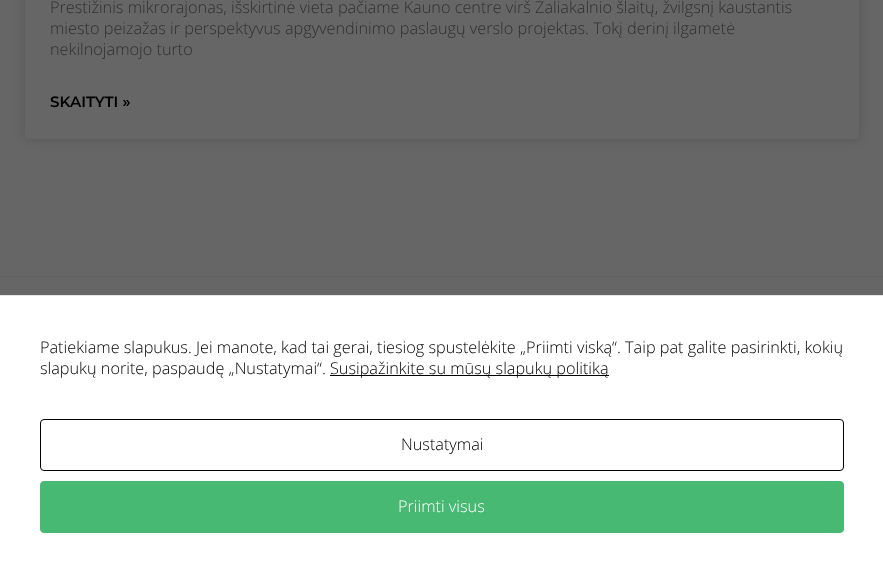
<svg xmlns="http://www.w3.org/2000/svg" width="883" height="572" viewBox="0 0 883 572">
  <rect width="100%" height="100%" fill="#666"/>
  <rect x="25" y="-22" width="834" height="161" rx="4" fill="#00000026" filter="blur(6px)"/>
  <rect x="25" y="-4" width="834" height="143" rx="4" fill="#666"/>
  <path d="M0 276h883v1H0z" fill="#616161"/>
  <path d="M0 296h883v276H0z" fill="#fff"/>
  <path d="M0 295h883v1H0z" fill="#e6e6e6"/>
  <path d="M330 375h279v1H330z" fill="#000"/>
  <rect x="40.5" y="419.5" width="803" height="51" rx="3.5" fill="none" stroke="#000"/>
  <rect x="40.5" y="481.5" width="803" height="51" rx="3.5" fill="#47b973" stroke="#47b973"/>
  <g font-family="Open Sans" font-size="16.25" font-weight="300" fill="#303030">
    <text x="50" y="13">Prestižinis mikrorajonas, išskirtinė vieta pačiame Kauno centre virš Žaliakalnio šlaitų, žvilgsnį kaustantis</text>
    <text x="50" y="34">miesto peizažas ir perspektyvus apgyvendinimo paslaugų verslo projektas. Tokį derinį ilgametė</text>
    <text x="50" y="55">nekilnojamojo turto</text>
  </g>
  <text x="50" y="107" font-family="Montserrat" font-size="15" font-weight="600" fill="#000">SKAITYTI »</text>
  <g font-family="Open Sans" font-size="16.25" font-weight="300" fill="#000">
    <text x="40" y="353">Patiekiame slapukus. Jei manote, kad tai gerai, tiesiog spustelėkite „Priimti viską“. Taip pat galite pasirinkti, kokių</text>
    <text x="40" y="374">slapukų norite, paspaudę „Nustatymai“.</text>
    <text x="330" y="374">Susipažinkite su mūsų slapukų politiką</text>
    <text x="401" y="450">Nustatymai</text>
  </g>
  <text x="398" y="512" font-family="Open Sans" font-size="16.25" font-weight="300" fill="#fff">Priimti visus</text>
</svg>
